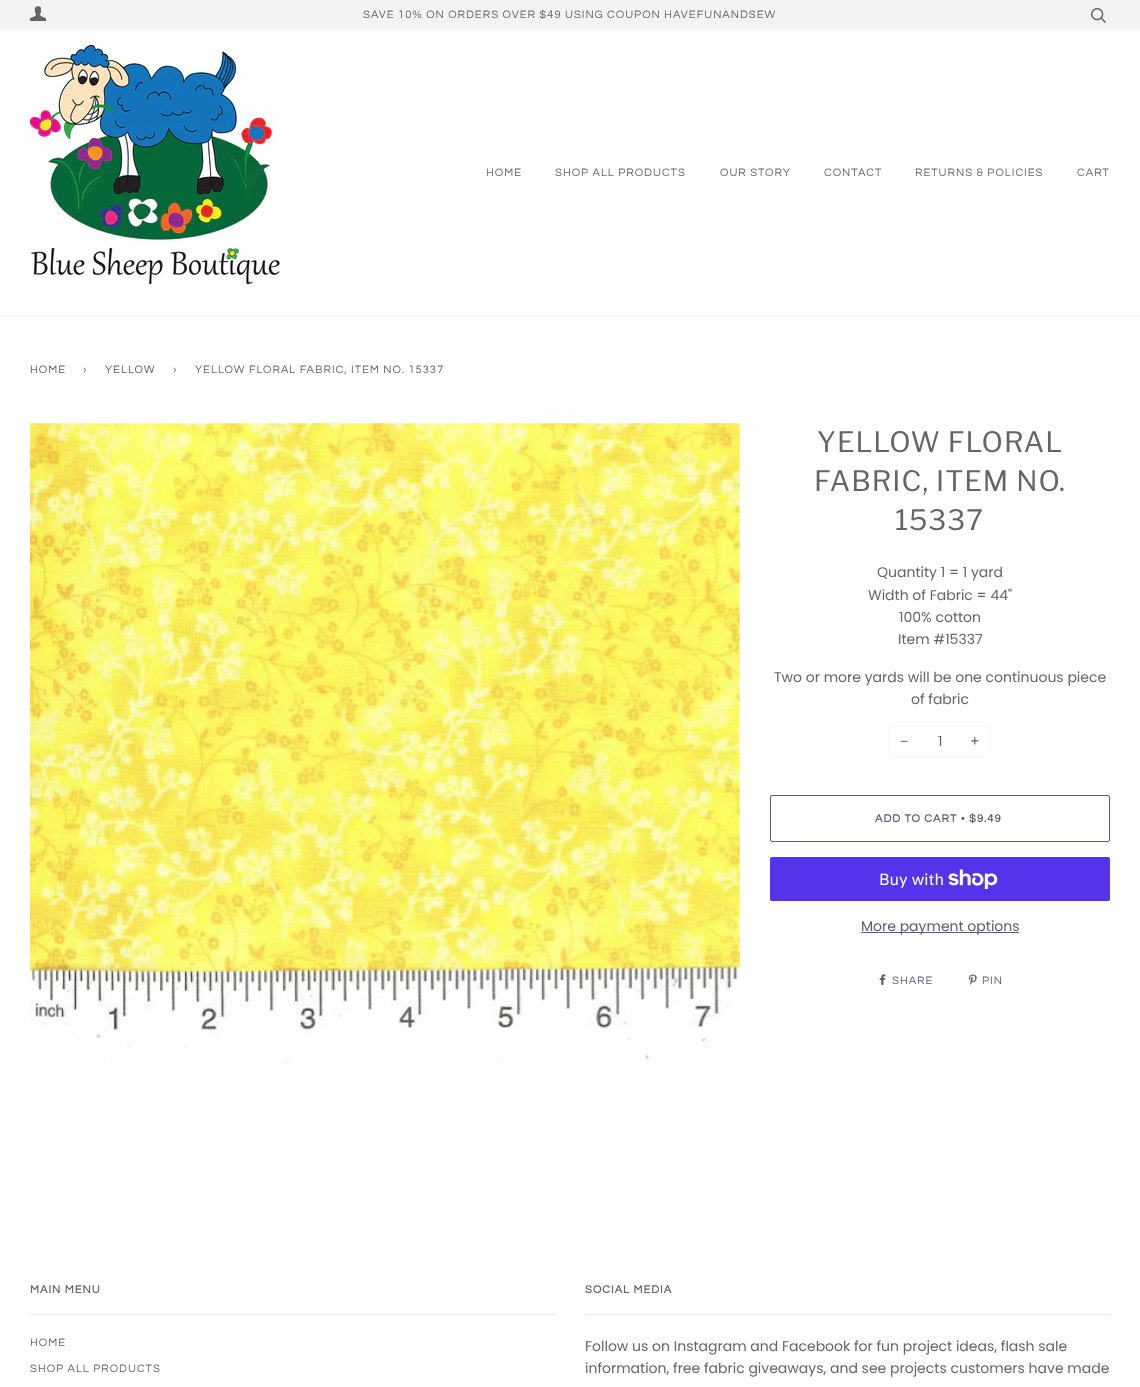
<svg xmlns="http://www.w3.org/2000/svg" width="1140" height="1387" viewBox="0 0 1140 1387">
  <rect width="100%" height="100%" fill="#fff"/>
  <path d="M0 0h1140v30H0z" fill="#f3f3f3"/>
  <image x="30" y="6" width="16" height="15" href="img/1.png"/>
  <image x="1091" y="8" width="15" height="15" href="img/2.png"/>
  <path d="M0 316h1140v1H0z" fill="#f3f3f3"/>
  <image x="30" y="45" width="250" height="240" href="img/3.png"/>
  <image x="30" y="423" width="710" height="641" href="img/4.png"/>
  <rect x="888.5" y="726.5" width="102" height="30" rx="1.5" fill="none" stroke="#f7f7f7"/>
  <rect x="770.5" y="795.5" width="339" height="46" rx="1.5" fill="none" stroke="#585e71"/>
  <rect x="770" y="857" width="340" height="44" rx="2" fill="#5433eb"/>
  <image x="948" y="869" width="50" height="20" href="img/5.png"/>
  <path d="M861 932h158v1H861z" fill="#585e71"/>
  <image x="879" y="974" width="7" height="11" href="img/6.png"/>
  <image x="968" y="974" width="9" height="11" href="img/7.png"/>
  <path d="M30 1314h525v1H30z" fill="#e8e8e8"/>
  <path d="M585 1314h525v1H585z" fill="#e8e8e8"/>
  <g font-family="Questrial" font-size="11.2" letter-spacing="1" fill="#656565">
    <text x="363" y="18">SAVE 10% ON ORDERS OVER $49 USING COUPON HAVEFUNANDSEW</text>
    <text x="486" y="176">HOME</text>
    <text x="555" y="176">SHOP ALL PRODUCTS</text>
    <text x="720" y="176">OUR STORY</text>
    <text x="824" y="176">CONTACT</text>
    <text x="915" y="176">RETURNS &amp; POLICIES</text>
    <text x="1077" y="176">CART</text>
  </g>
  <text x="30" y="373" font-family="Questrial" font-size="11.2" letter-spacing="1" fill="#585e71">HOME</text>
  <text x="83" y="373" font-family="Questrial" font-size="11.2" letter-spacing="1" fill="#656565">›</text>
  <text x="105" y="373" font-family="Questrial" font-size="11.2" letter-spacing="1" fill="#585e71">YELLOW</text>
  <g font-family="Questrial" font-size="11.2" letter-spacing="1" fill="#656565">
    <text x="173" y="373">›</text>
    <text x="195" y="373">YELLOW FLORAL FABRIC, ITEM NO. 15337</text>
  </g>
  <g font-family="Libre Franklin" font-size="28" letter-spacing="1" fill="#656565">
    <text x="817" y="452">YELLOW FLORAL</text>
    <text x="814" y="491">FABRIC, ITEM NO.</text>
    <text x="895" y="530">15337</text>
  </g>
  <g font-family="Poppins" font-size="14" fill="#656565">
    <text x="877" y="577">Quantity 1 = 1 yard</text>
    <text x="868" y="600">Width of Fabric = 44"</text>
    <text x="899" y="622">100% cotton</text>
    <text x="898" y="644">Item #15337</text>
    <text x="774" y="682">Two or more yards will be one continuous piece</text>
    <text x="911" y="704">of fabric</text>
  </g>
  <text x="900" y="746" font-family="Liberation Sans" font-size="14" fill="#656565">−</text>
  <g font-family="Poppins" font-size="14" fill="#656565">
    <text x="938" y="746">1</text>
    <text x="970" y="746">+</text>
  </g>
  <text x="875" y="822" font-family="Questrial" font-size="11.2" font-weight="bold" letter-spacing="1" fill="#585e71">ADD TO CART</text>
  <text x="961" y="822" font-family="Liberation Serif" font-size="11.2" font-weight="bold" letter-spacing="1" fill="#585e71">•</text>
  <text x="969" y="822" font-family="Questrial" font-size="11.2" font-weight="bold" letter-spacing="1" fill="#585e71">$9.49</text>
  <text x="879" y="885" font-family="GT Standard" font-size="16" fill="#fff">Buy with</text>
  <text x="861" y="931" font-family="Poppins" font-size="14" fill="#585e71">More payment options</text>
  <g font-family="Questrial" font-size="11.2" letter-spacing="1" fill="#585e71">
    <text x="892" y="984">SHARE</text>
    <text x="982" y="984">PIN</text>
  </g>
  <text x="30" y="1293" font-family="Questrial" font-size="11.2" font-weight="bold" letter-spacing="1" fill="#656565">MAIN MENU</text>
  <g font-family="Questrial" font-size="11.2" letter-spacing="1" fill="#656565">
    <text x="30" y="1346">HOME</text>
    <text x="30" y="1372">SHOP ALL PRODUCTS</text>
  </g>
  <text x="585" y="1293" font-family="Questrial" font-size="11.2" font-weight="bold" letter-spacing="1" fill="#656565">SOCIAL MEDIA</text>
  <g font-family="Poppins" font-size="14" fill="#656565">
    <text x="585" y="1351">Follow us on Instagram and Facebook for fun project ideas, flash sale</text>
    <text x="585" y="1373">information, free fabric giveaways, and see projects customers have made</text>
  </g>
</svg>
